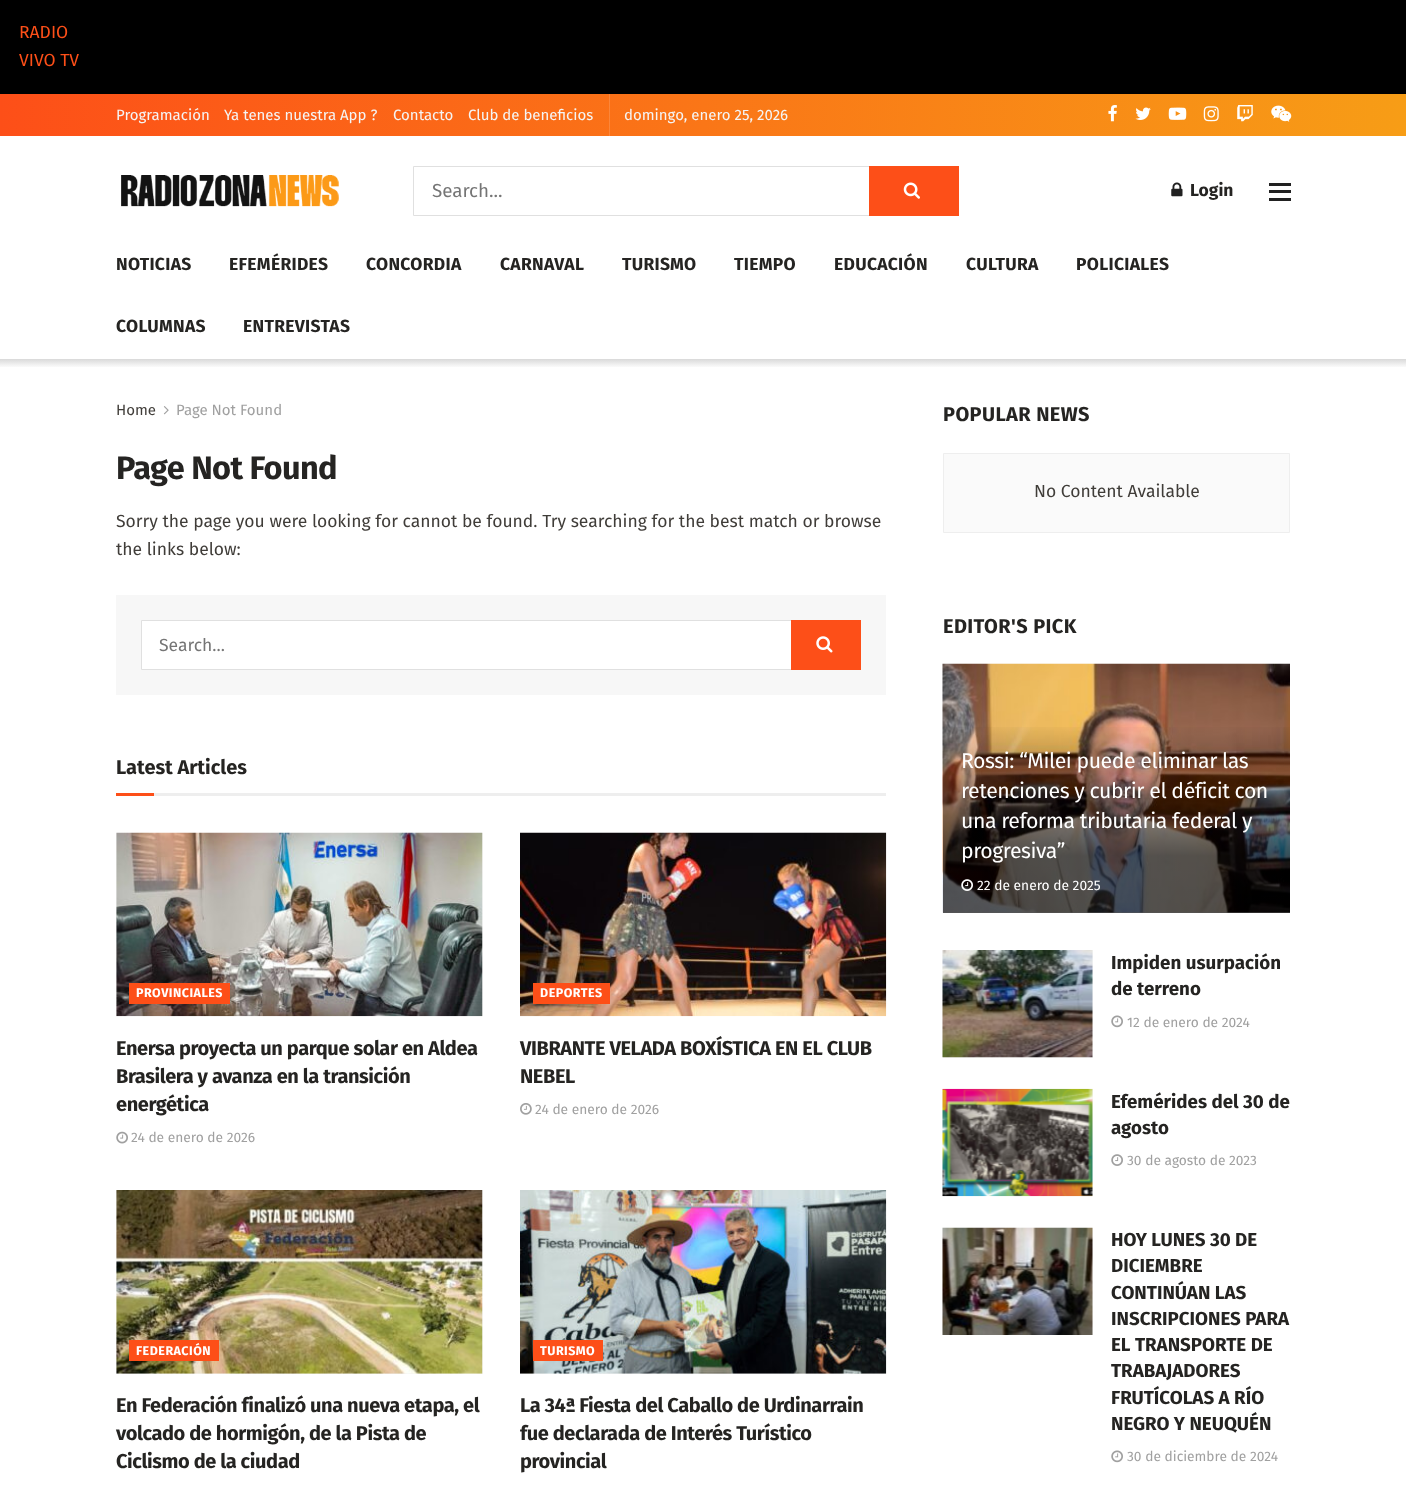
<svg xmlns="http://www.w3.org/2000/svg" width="1406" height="1487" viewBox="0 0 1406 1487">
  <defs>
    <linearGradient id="g1" gradientUnits="userSpaceOnUse" x1="0" y1="115" x2="1406" y2="115"><stop offset="0" stop-color="#fd4f18"/><stop offset="1" stop-color="#f79d16"/></linearGradient>
    <linearGradient id="g2" gradientUnits="userSpaceOnUse" x1="703" y1="359" x2="703" y2="368"><stop offset="0" stop-color="#d9d9d9"/><stop offset="1" stop-color="#fff"/></linearGradient>
    <linearGradient id="g3" gradientUnits="userSpaceOnUse" x1="1116" y1="723" x2="1116" y2="913"><stop offset="0" stop-color="#000" stop-opacity="0"/><stop offset="0.7" stop-color="#000" stop-opacity="0.65"/></linearGradient>
  </defs>
  <rect width="100%" height="100%" fill="#fff"/>
  <path d="M0 0h1406v94H0z" fill="#000"/>
  <path d="M0 94h1406v42H0z" fill="url(#g1)"/>
  <path d="M609 94h1v42H609z" fill="#fb863a"/>
  <image x="1108" y="105" width="9" height="17" href="img/1.png"/>
  <image x="1135" y="107" width="16" height="13" href="img/2.png"/>
  <image x="1168" y="107" width="19" height="13" href="img/3.png"/>
  <image x="1203" y="106" width="16" height="16" href="img/4.png"/>
  <image x="1237" y="105" width="16" height="17" href="img/5.png"/>
  <image x="1271" y="105" width="21" height="17" href="img/6.png"/>
  <image x="121" y="175" width="218" height="32" href="img/7.png"/>
  <path d="M413.5 166.5h545v49H413.5z" fill="none" stroke="#e0e0e0"/>
  <path d="M869 166h90v50H869z" fill="#fd4f18"/>
  <image x="903" y="182" width="17" height="17" href="img/8.png"/>
  <image x="1171" y="182" width="12" height="15" href="img/9.png"/>
  <path d="M1269 183h22v3H1269z" fill="#212121"/>
  <path d="M1269 190h22v3H1269z" fill="#212121"/>
  <path d="M1269 198h22v3H1269z" fill="#212121"/>
  <path d="M0 359h1406v8H0z" fill="url(#g2)"/>
  <image x="163" y="406" width="6" height="9" href="img/10.png"/>
  <path d="M116 595h770v100H116z" fill="#f7f7f7"/>
  <path d="M142 621h649v48H142z" fill="#fff"/>
  <path d="M141.5 620.5h719v49H141.5z" fill="none" stroke="#e0e0e0"/>
  <path d="M791 620h70v50H791z" fill="#fd4f18"/>
  <image x="816" y="636" width="17" height="17" href="img/11.png"/>
  <path d="M154 793h732v3H154z" fill="#eee"/>
  <path d="M116 793h38v3H116z" fill="#fd4f18"/>
  <path d="M116 833h367v183H116z" fill="#f7f7f7"/>
  <image x="373" y="832" width="66" height="1" href="img/13.png"/>
  <image x="116" y="832" width="367" height="185" href="img/12.png"/>
  <path d="M129 983h101v21H129z" fill="#fd4f18"/>
  <image x="116" y="1131" width="12" height="13" href="img/14.png"/>
  <image x="777" y="832" width="65" height="1" href="img/16.png"/>
  <image x="520" y="832" width="367" height="185" href="img/15.png"/>
  <path d="M533 983h77v21H533z" fill="#fd4f18"/>
  <image x="520" y="1103" width="12" height="12" href="img/17.png"/>
  <path d="M116 1190h367v184H116z" fill="#f7f7f7"/>
  <image x="373" y="1373" width="66" height="1" href="img/19.png"/>
  <image x="116" y="1190" width="367" height="184" href="img/18.png"/>
  <path d="M129 1340h90v21H129z" fill="#fd4f18"/>
  <path d="M520 1373h366v1H520z" fill="#f7f7f7"/>
  <image x="777" y="1373" width="65" height="1" href="img/21.png"/>
  <image x="520" y="1190" width="367" height="184" href="img/20.png"/>
  <path d="M533 1340h70v21H533z" fill="#fd4f18"/>
  <path d="M943.5 453.5h346v79H943.5z" fill="#fafafa" stroke="#eee"/>
  <path d="M943 912h347v1H943z" fill="#f7f7f7"/>
  <image x="942" y="663" width="310" height="250" href="img/22.png"/>
  <image x="942" y="663" width="348" height="250" href="img/23.png"/>
  <path d="M943 727h347v186H943z" fill="url(#g3)"/>
  <image x="961" y="879" width="12" height="12" href="img/24.png"/>
  <path d="M943 950h150v108H943z" fill="#f7f7f7"/>
  <image x="942" y="950" width="1" height="107" href="img/25.png"/>
  <image x="942" y="950" width="151" height="108" href="img/26.png"/>
  <image x="1111" y="1015" width="12" height="13" href="img/27.png"/>
  <path d="M1092 1089h1v107H1092z" fill="#f7f7f7"/>
  <image x="942" y="1089" width="1" height="107" href="img/25.png"/>
  <image x="942" y="1088" width="151" height="109" href="img/28.png"/>
  <image x="1111" y="1154" width="12" height="12" href="img/29.png"/>
  <path d="M1092 1228h1v107H1092z" fill="#f7f7f7"/>
  <image x="942" y="1227" width="134" height="108" href="img/30.png"/>
  <image x="942" y="1227" width="151" height="108" href="img/31.png"/>
  <image x="1111" y="1450" width="12" height="13" href="img/27.png"/>
  <g font-family="Fira Sans" font-size="17.5" fill="#fd4f18">
    <text x="19" y="38">RADIO</text>
    <text x="19" y="66">VIVO TV</text>
  </g>
  <g font-family="Fira Sans" font-size="15" fill="#f5f5f5">
    <text x="116" y="120">Programación</text>
    <text x="224" y="120">Ya tenes nuestra App ?</text>
    <text x="393" y="120">Contacto</text>
    <text x="468" y="120">Club de beneficios</text>
    <text x="624" y="120">domingo, enero 25, 2026</text>
  </g>
  <text x="432" y="197" font-family="Fira Sans" font-size="18.75" fill="#757575">Search...</text>
  <text x="1190" y="196" font-family="Fira Sans" font-size="17.5" font-weight="bold" fill="#252422">Login</text>
  <g font-family="Fira Sans" font-size="17.5" font-weight="bold" letter-spacing="0.3" fill="#252422">
    <text x="116" y="270">NOTICIAS</text>
    <text x="229" y="270">EFEMÉRIDES</text>
    <text x="366" y="270">CONCORDIA</text>
    <text x="500" y="270">CARNAVAL</text>
    <text x="622" y="270">TURISMO</text>
    <text x="734" y="270">TIEMPO</text>
    <text x="834" y="270">EDUCACIÓN</text>
    <text x="966" y="270">CULTURA</text>
    <text x="1076" y="270">POLICIALES</text>
    <text x="116" y="332">COLUMNAS</text>
    <text x="243" y="332">ENTREVISTAS</text>
  </g>
  <text x="116" y="415" font-family="Fira Sans" font-size="15" fill="#403d39">Home</text>
  <text x="176" y="415" font-family="Fira Sans" font-size="15" fill="#a0a0a0">Page Not Found</text>
  <text x="116" y="479" font-family="Fira Sans" font-size="32.5" font-weight="bold" letter-spacing="-0.6" fill="#252422">Page Not Found</text>
  <g font-family="Fira Sans" font-size="17.5" fill="#403d39">
    <text x="116" y="527">Sorry the page you were looking for cannot be found. Try searching for the best match or browse</text>
    <text x="116" y="555">the links below:</text>
  </g>
  <text x="159" y="651" font-family="Fira Sans" font-size="17.5" fill="#757575">Search...</text>
  <text x="116" y="774" font-family="Fira Sans" font-size="20" font-weight="bold" fill="#252422">Latest Articles</text>
  <text x="136" y="997" font-family="Fira Sans" font-size="12.5" font-weight="bold" letter-spacing="0.5" fill="#fff">PROVINCIALES</text>
  <g font-family="Fira Sans" font-size="20" font-weight="bold" letter-spacing="-0.4" fill="#252422">
    <text x="116" y="1055">Enersa proyecta un parque solar en Aldea</text>
    <text x="116" y="1083">Brasilera y avanza en la transición</text>
    <text x="116" y="1111">energética</text>
  </g>
  <text x="131" y="1142" font-family="Fira Sans" font-size="13.75" fill="#a0a0a0">24 de enero de 2026</text>
  <text x="540" y="997" font-family="Fira Sans" font-size="12.5" font-weight="bold" letter-spacing="0.5" fill="#fff">DEPORTES</text>
  <g font-family="Fira Sans" font-size="20" font-weight="bold" letter-spacing="-0.4" fill="#252422">
    <text x="520" y="1055">VIBRANTE VELADA BOXÍSTICA EN EL CLUB</text>
    <text x="520" y="1083">NEBEL</text>
  </g>
  <text x="535" y="1114" font-family="Fira Sans" font-size="13.75" fill="#a0a0a0">24 de enero de 2026</text>
  <text x="136" y="1355" font-family="Fira Sans" font-size="12.5" font-weight="bold" letter-spacing="0.5" fill="#fff">FEDERACIÓN</text>
  <g font-family="Fira Sans" font-size="20" font-weight="bold" letter-spacing="-0.4" fill="#252422">
    <text x="116" y="1412">En Federación finalizó una nueva etapa, el</text>
    <text x="116" y="1440">volcado de hormigón, de la Pista de</text>
    <text x="116" y="1468">Ciclismo de la ciudad</text>
  </g>
  <text x="540" y="1355" font-family="Fira Sans" font-size="12.5" font-weight="bold" letter-spacing="0.5" fill="#fff">TURISMO</text>
  <g font-family="Fira Sans" font-size="20" font-weight="bold" letter-spacing="-0.4" fill="#252422">
    <text x="520" y="1412">La 34ª Fiesta del Caballo de Urdinarrain</text>
    <text x="520" y="1440">fue declarada de Interés Turístico</text>
    <text x="520" y="1468">provincial</text>
  </g>
  <text x="943" y="421" font-family="Fira Sans" font-size="20" font-weight="bold" letter-spacing="0.4" fill="#252422">POPULAR NEWS</text>
  <text x="1034" y="497" font-family="Fira Sans" font-size="17.5" fill="#403d39">No Content Available</text>
  <text x="943" y="633" font-family="Fira Sans" font-size="20" font-weight="bold" letter-spacing="0.4" fill="#252422">EDITOR'S PICK</text>
  <g font-family="Fira Sans" font-size="21.25" letter-spacing="-0.45" fill="#fff">
    <text x="961" y="768">Rossi: “Milei puede eliminar las</text>
    <text x="961" y="798">retenciones y cubrir el déficit con</text>
    <text x="961" y="828">una reforma tributaria federal y</text>
    <text x="961" y="858">progresiva”</text>
  </g>
  <text x="977" y="890" font-family="Fira Sans" font-size="13.75" fill="#fff">22 de enero de 2025</text>
  <g font-family="Fira Sans" font-size="18.75" font-weight="bold" fill="#252422">
    <text x="1111" y="969">Impiden usurpación</text>
    <text x="1111" y="995">de terreno</text>
  </g>
  <text x="1127" y="1027" font-family="Fira Sans" font-size="13.75" fill="#a0a0a0">12 de enero de 2024</text>
  <g font-family="Fira Sans" font-size="18.75" font-weight="bold" fill="#252422">
    <text x="1111" y="1108">Efemérides del 30 de</text>
    <text x="1111" y="1134">agosto</text>
  </g>
  <text x="1127" y="1165" font-family="Fira Sans" font-size="13.75" fill="#a0a0a0">30 de agosto de 2023</text>
  <g font-family="Fira Sans" font-size="18.75" font-weight="bold" fill="#252422">
    <text x="1111" y="1246">HOY LUNES 30 DE</text>
    <text x="1111" y="1272">DICIEMBRE</text>
    <text x="1111" y="1299">CONTINÚAN LAS</text>
    <text x="1111" y="1325">INSCRIPCIONES PARA</text>
    <text x="1111" y="1351">EL TRANSPORTE DE</text>
    <text x="1111" y="1377">TRABAJADORES</text>
    <text x="1111" y="1404">FRUTÍCOLAS A RÍO</text>
    <text x="1111" y="1430">NEGRO Y NEUQUÉN</text>
  </g>
  <text x="1127" y="1461" font-family="Fira Sans" font-size="13.75" fill="#a0a0a0">30 de diciembre de 2024</text>
</svg>
